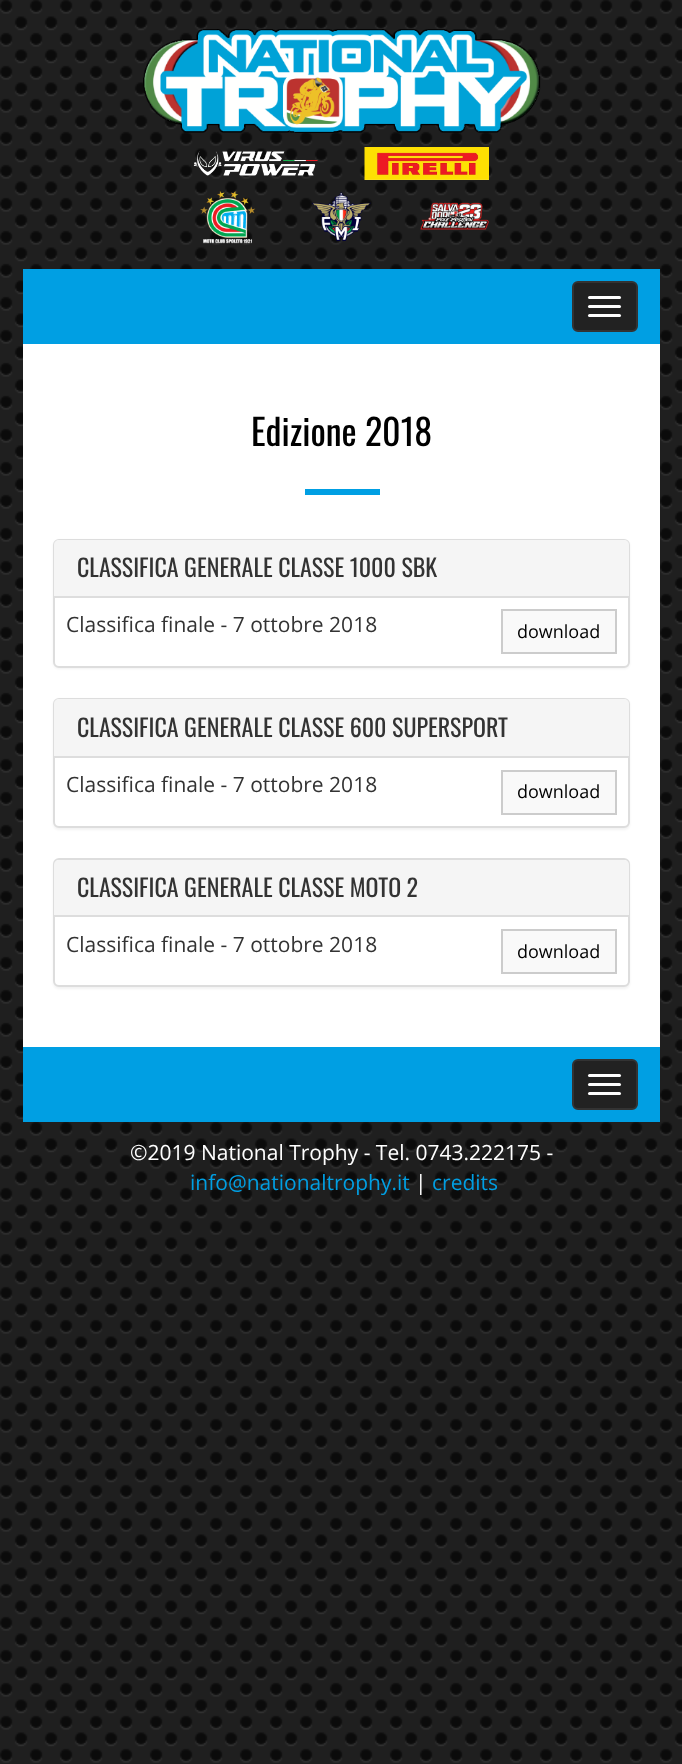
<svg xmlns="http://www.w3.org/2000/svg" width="682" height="1764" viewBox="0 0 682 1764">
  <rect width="100%" height="100%" fill="#333"/>
  <image x="0" y="0" width="682" height="1764" href="img/1.png"/>
  <image x="143" y="29" width="398" height="104" href="img/2.png"/>
  <image x="193" y="151" width="125" height="25" href="img/3.png"/>
  <image x="364" y="147" width="125" height="33" href="img/4.png"/>
  <image x="200" y="191" width="56" height="53" href="img/5.png"/>
  <image x="311" y="192" width="60" height="49" href="img/6.png"/>
  <image x="420" y="202" width="69" height="28" href="img/7.png"/>
  <path d="M23 269h637v75H23z" fill="#009fe3"/>
  <rect x="573" y="282" width="64" height="49" rx="5" fill="#222" stroke="#333" stroke-width="2"/>
  <rect x="588" y="296" width="33" height="3" rx="1.5" fill="#fff"/>
  <rect x="588" y="305" width="33" height="3" rx="1.5" fill="#fff"/>
  <rect x="588" y="314" width="33" height="3" rx="1.5" fill="#fff"/>
  <path d="M23 344h637v703H23z" fill="#fff"/>
  <path d="M305 489h75v6H305z" fill="#009fe3"/>
  <rect x="53" y="540" width="577" height="129" rx="6" fill="#0000000d" filter="blur(1px)"/>
  <rect x="54" y="540" width="575" height="127" rx="5" fill="#fff" stroke="#ddd" stroke-width="2"/>
  <path d="M59 540H624C627 540 629 542 629 545V597H54V545C54 542 56 540 59 540Z" fill="#f5f5f5"/>
  <path d="M54 596h575v2H54z" fill="#ddd"/>
  <path d="M502 610h114v43H502z" fill="#f9f9f9" stroke="#ccc" stroke-width="2"/>
  <rect x="53" y="699" width="577" height="131" rx="6" fill="#0000000d" filter="blur(1px)"/>
  <rect x="54" y="699" width="575" height="128" rx="5" fill="#fff" stroke="#ddd" stroke-width="2"/>
  <path d="M59 699H624C627 699 629 701 629 704V758H54V704C54 701 56 699 59 699Z" fill="#f5f5f5"/>
  <path d="M54 756h575v2H54z" fill="#ddd"/>
  <path d="M502 771h114v43H502z" fill="#f9f9f9" stroke="#ccc" stroke-width="2"/>
  <rect x="53" y="860" width="577" height="129" rx="6" fill="#0000000d" filter="blur(1px)"/>
  <rect x="54" y="859" width="575" height="127" rx="5" fill="#fff" stroke="#ddd" stroke-width="2"/>
  <path d="M59 860H624C627 860 629 862 629 865V917H54V865C54 862 56 860 59 860Z" fill="#f5f5f5"/>
  <path d="M54 915h575v2H54z" fill="#ddd"/>
  <path d="M502 930h114v43H502z" fill="#f9f9f9" stroke="#ccc" stroke-width="2"/>
  <path d="M23 1047h637v75H23z" fill="#009fe3"/>
  <rect x="573" y="1060" width="64" height="49" rx="5" fill="#222" stroke="#333" stroke-width="2"/>
  <rect x="588" y="1074" width="33" height="3" rx="1.5" fill="#fff"/>
  <rect x="588" y="1083" width="33" height="3" rx="1.5" fill="#fff"/>
  <rect x="588" y="1092" width="33" height="3" rx="1.5" fill="#fff"/>
  <text x="251" y="446" font-family="Oswald" font-size="36" fill="#000">Edizione 2018</text>
  <text x="77" y="577" font-family="Oswald" font-size="24" fill="#333">CLASSIFICA GENERALE CLASSE 1000 SBK</text>
  <text x="66" y="632" font-family="Open Sans" font-size="21" fill="#333">Classifica finale - 7 ottobre 2018</text>
  <text x="517" y="638" font-family="Open Sans" font-size="18" fill="#000">download</text>
  <text x="77" y="737" font-family="Oswald" font-size="24" fill="#333">CLASSIFICA GENERALE CLASSE 600 SUPERSPORT</text>
  <text x="66" y="792" font-family="Open Sans" font-size="21" fill="#333">Classifica finale - 7 ottobre 2018</text>
  <text x="517" y="798" font-family="Open Sans" font-size="18" fill="#000">download</text>
  <text x="77" y="897" font-family="Oswald" font-size="24" fill="#333">CLASSIFICA GENERALE CLASSE MOTO 2</text>
  <text x="66" y="952" font-family="Open Sans" font-size="21" fill="#333">Classifica finale - 7 ottobre 2018</text>
  <text x="517" y="958" font-family="Open Sans" font-size="18" fill="#000">download</text>
  <text x="130" y="1160" font-family="Open Sans" font-size="21" fill="#fff">©2019 National Trophy - Tel. 0743.222175 -</text>
  <text x="190" y="1190" font-family="Open Sans" font-size="21" fill="#009fe3">info@nationaltrophy.it</text>
  <text x="415" y="1190" font-family="Open Sans" font-size="21" fill="#fff">|</text>
  <text x="432" y="1190" font-family="Open Sans" font-size="21" fill="#009fe3">credits</text>
</svg>
